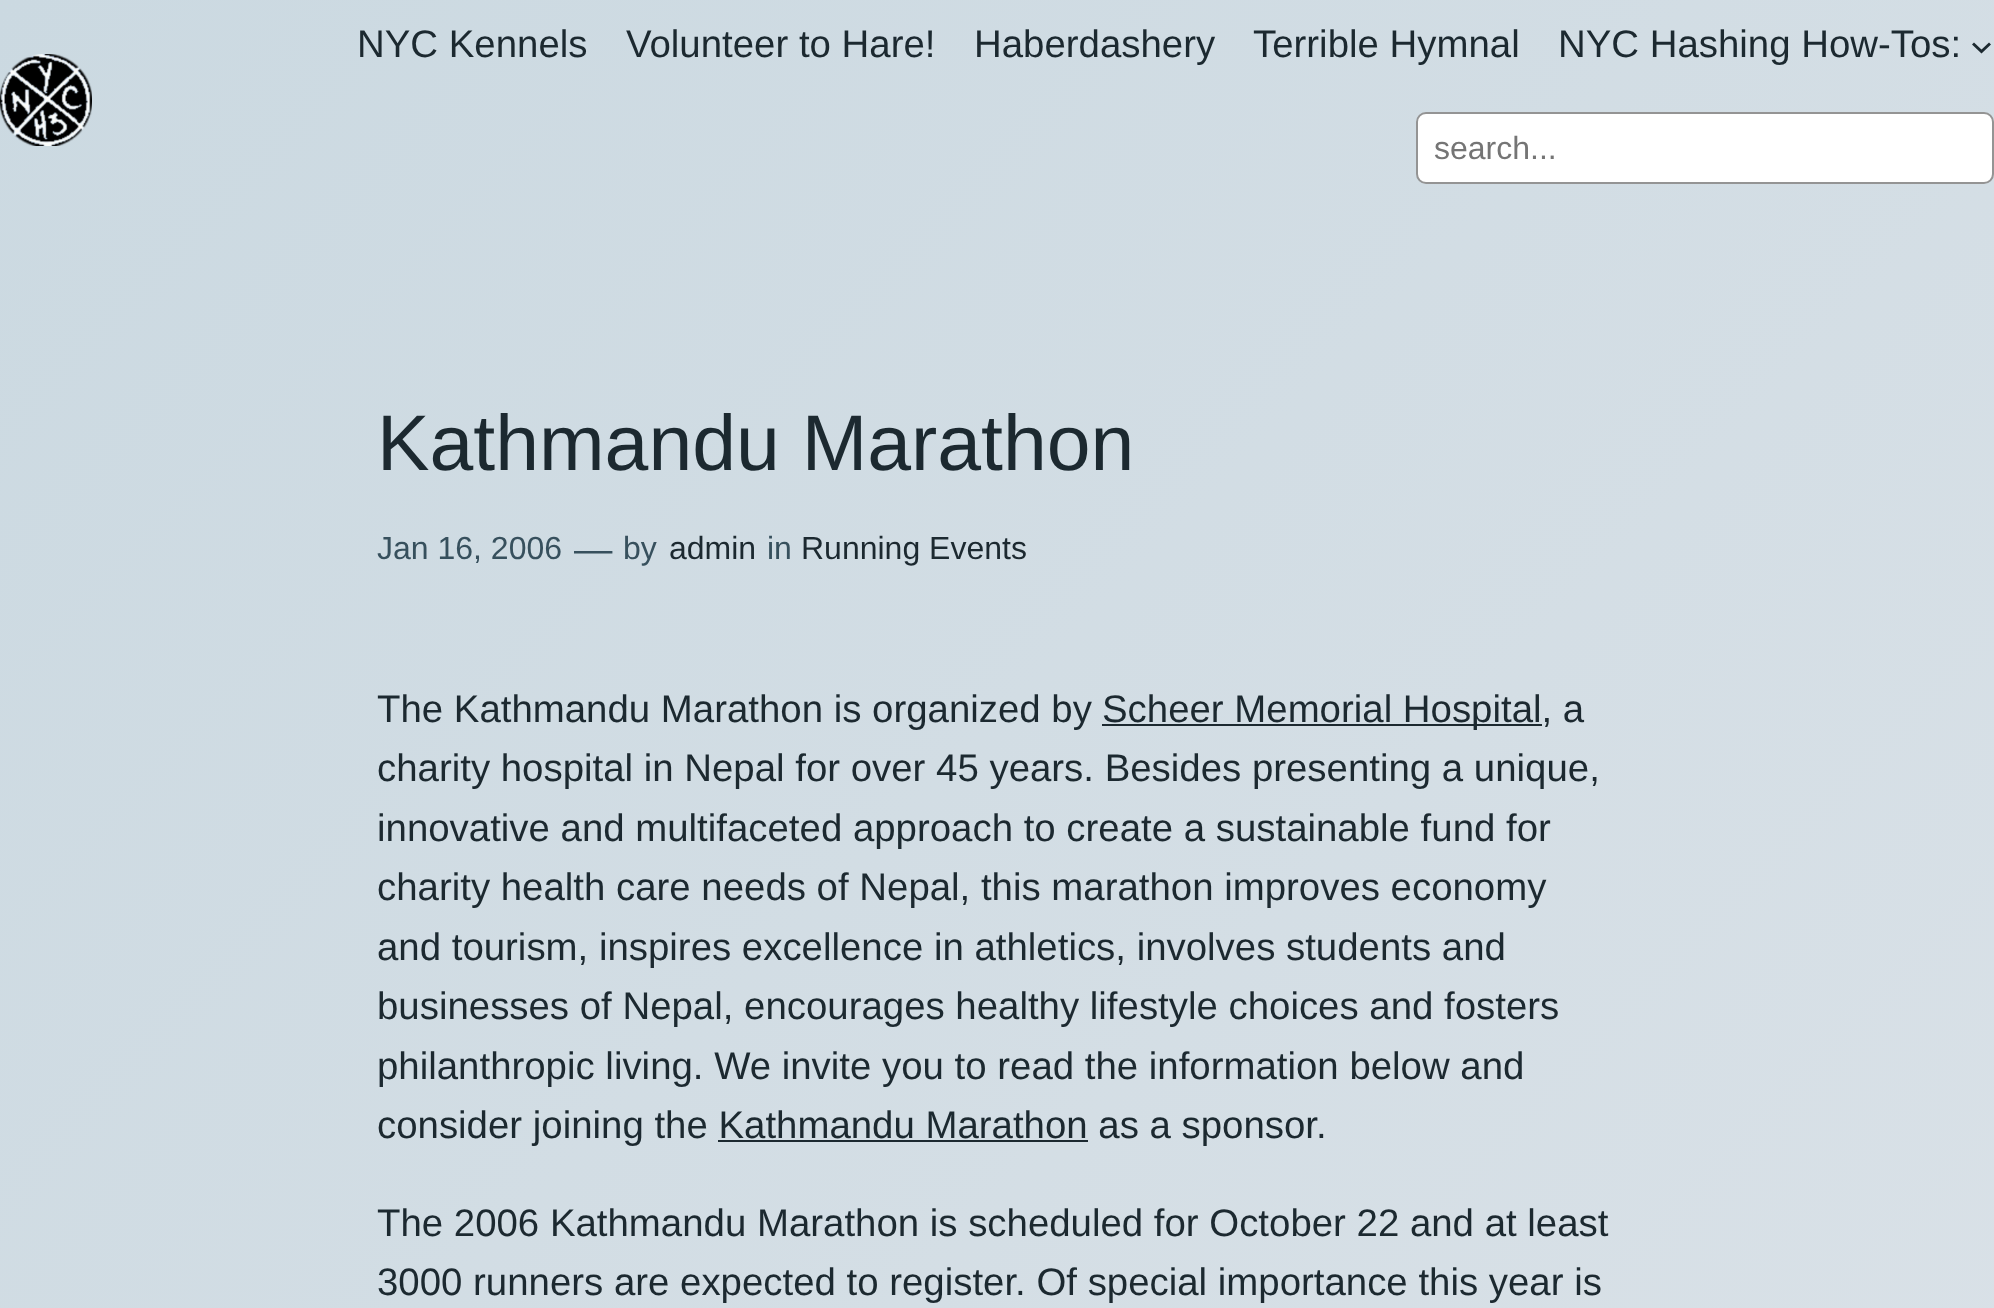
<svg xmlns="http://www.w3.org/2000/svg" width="1994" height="1308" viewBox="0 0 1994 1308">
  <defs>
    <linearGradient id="g1" gradientUnits="userSpaceOnUse" x1="-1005" y1="1041" x2="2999" y2="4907"><stop offset="0" stop-color="#cbd9e1"/><stop offset="1" stop-color="#ebebef"/></linearGradient>
  </defs>
  <rect width="100%" height="100%" fill="#fff"/>
  <path d="M0 0h1994v1308H0z" fill="url(#g1)"/>
  <image x="0" y="54" width="92" height="92" href="img/1.png"/>
  <path d="M1973 43.5L1981.5 51.5L1990 43.5" fill="none" stroke="#1c2930" stroke-width="2.9"/>
  <rect x="1417" y="113" width="576" height="70" rx="9" fill="#fff" stroke="#949494" stroke-width="2"/>
  <path d="M1102 724h440v2H1102z" fill="#1c2930"/>
  <path d="M718 1140h370v2H718z" fill="#1c2930"/>
  <g font-family="Liberation Sans" font-size="38.4" fill="#1c2930">
    <text x="357" y="57">NYC Kennels</text>
    <text x="626" y="57">Volunteer to Hare!</text>
    <text x="974" y="57">Haberdashery</text>
    <text x="1253" y="57">Terrible Hymnal</text>
    <text x="1558" y="57">NYC Hashing How-Tos:</text>
  </g>
  <text x="1434" y="159" font-family="Liberation Sans" font-size="32" fill="#757575">search...</text>
  <text x="377" y="470" font-family="Liberation Sans" font-size="78.75" fill="#1c2930">Kathmandu Marathon</text>
  <text x="377" y="559" font-family="Liberation Sans" font-size="32" fill="#37505d">Jan 16, 2006</text>
  <text x="574" y="562" font-family="Liberation Sans" font-size="38.4" fill="#37505d">—</text>
  <text x="623" y="559" font-family="Liberation Sans" font-size="32" fill="#37505d">by</text>
  <text x="669" y="559" font-family="Liberation Sans" font-size="32" fill="#1c2930">admin</text>
  <text x="767" y="559" font-family="Liberation Sans" font-size="32" fill="#37505d">in</text>
  <text x="801" y="559" font-family="Liberation Sans" font-size="32" fill="#1c2930">Running Events</text>
  <g font-family="Liberation Sans" font-size="38.4" fill="#1c2930">
    <text x="377" y="722">The Kathmandu Marathon is organized by</text>
    <text x="1102" y="722">Scheer Memorial Hospital, a</text>
    <text x="377" y="781">charity hospital in Nepal for over 45 years. Besides presenting a unique,</text>
    <text x="377" y="841">innovative and multifaceted approach to create a sustainable fund for</text>
    <text x="377" y="900">charity health care needs of Nepal, this marathon improves economy</text>
    <text x="377" y="960">and tourism, inspires excellence in athletics, involves students and</text>
    <text x="377" y="1019">businesses of Nepal, encourages healthy lifestyle choices and fosters</text>
    <text x="377" y="1079">philanthropic living. We invite you to read the information below and</text>
    <text x="377" y="1138">consider joining the Kathmandu Marathon as a sponsor.</text>
    <text x="377" y="1236">The 2006 Kathmandu Marathon is scheduled for October 22 and at least</text>
    <text x="377" y="1295">3000 runners are expected to register. Of special importance this year is</text>
  </g>
</svg>
